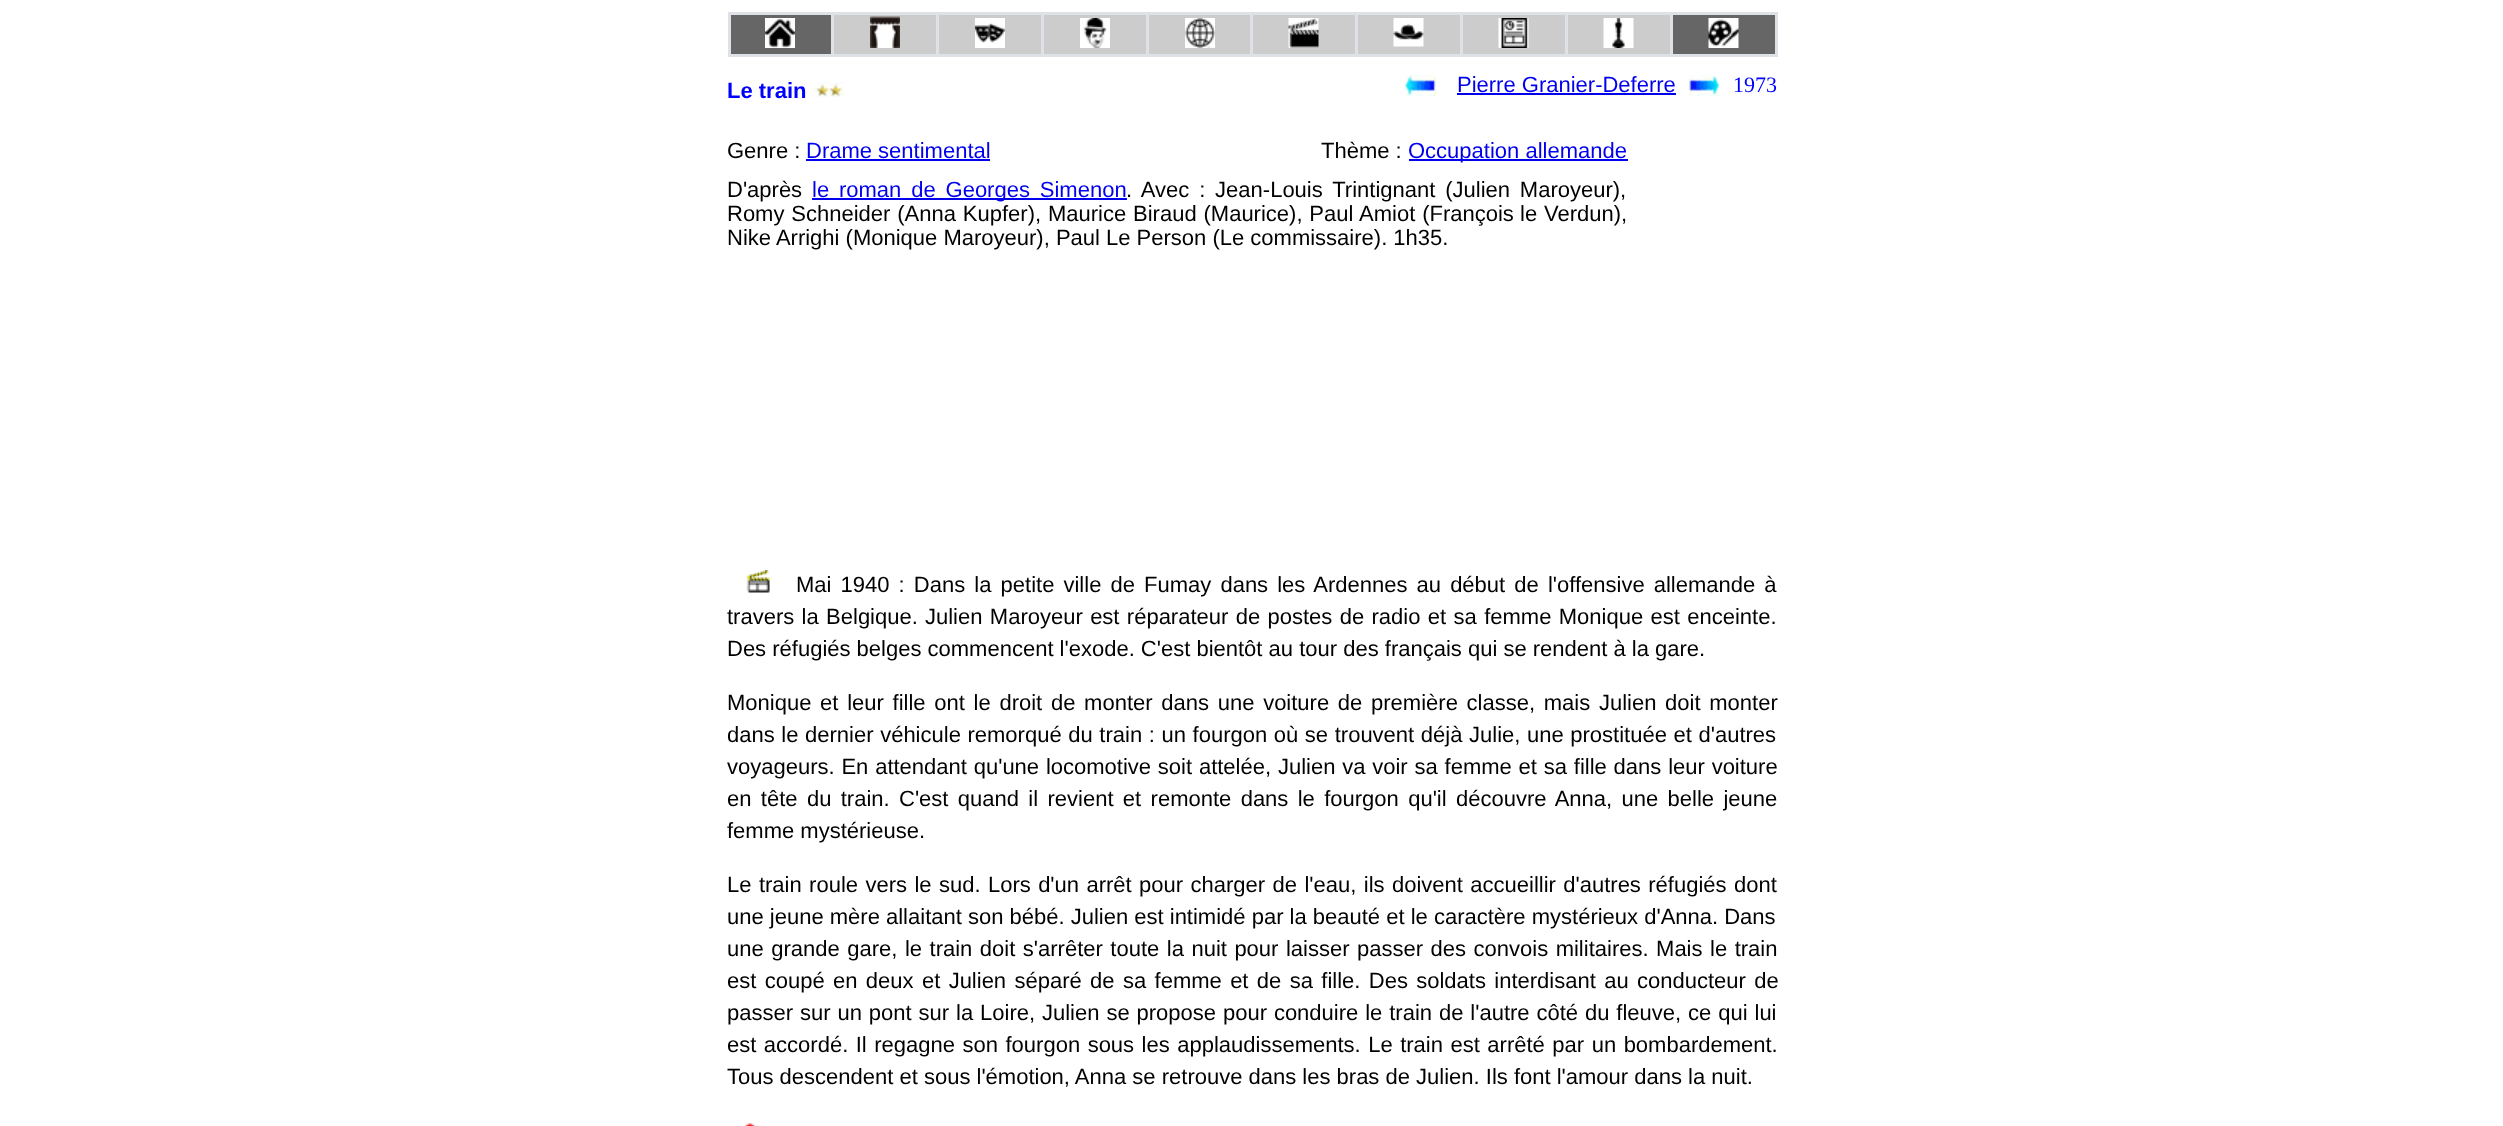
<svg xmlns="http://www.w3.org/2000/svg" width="2503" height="1126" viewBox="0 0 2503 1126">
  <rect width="100%" height="100%" fill="#fff"/>
  <path d="M728 12h1050v45H728z" fill="#dee1e6"/>
  <path d="M731 15h100v39H731z" fill="#666"/>
  <image x="765" y="18" width="30" height="30" href="img/1.png"/>
  <path d="M834 15h102v39H834z" fill="#ccc"/>
  <image x="870" y="16" width="30" height="32" href="img/2.png"/>
  <path d="M939 15h102v39H939z" fill="#ccc"/>
  <image x="975" y="18" width="30" height="30" href="img/3.png"/>
  <path d="M1044 15h102v39H1044z" fill="#ccc"/>
  <image x="1080" y="18" width="30" height="30" href="img/4.png"/>
  <path d="M1149 15h101v39H1149z" fill="#ccc"/>
  <image x="1185" y="18" width="30" height="30" href="img/5.png"/>
  <path d="M1253 15h102v39H1253z" fill="#ccc"/>
  <image x="1288" y="18" width="31" height="30" href="img/6.png"/>
  <path d="M1358 15h102v39H1358z" fill="#ccc"/>
  <image x="1393" y="18" width="31" height="29" href="img/7.png"/>
  <path d="M1463 15h102v39H1463z" fill="#ccc"/>
  <image x="1498" y="18" width="31" height="30" href="img/8.png"/>
  <path d="M1568 15h102v39H1568z" fill="#ccc"/>
  <image x="1603" y="18" width="31" height="30" href="img/9.png"/>
  <path d="M1673 15h102v39H1673z" fill="#666"/>
  <image x="1708" y="18" width="31" height="30" href="img/10.png"/>
  <image x="813" y="82" width="30" height="16" href="img/11.png"/>
  <image x="1405" y="75" width="31" height="21" href="img/12.png"/>
  <path d="M1457 93h219v2H1457z" fill="#00e"/>
  <image x="1689" y="75" width="30" height="21" href="img/13.png"/>
  <path d="M806 159h184v2H806z" fill="#00e"/>
  <path d="M1409 159h219v2H1409z" fill="#00e"/>
  <path d="M812 198h315v2H812z" fill="#00e"/>
  <image x="746" y="570" width="24" height="23" href="img/14.png"/>
  <image x="745" y="1123" width="11" height="3" href="img/15.png"/>
  <text x="727" y="98" font-family="Liberation Sans" font-size="22" font-weight="bold" fill="#00f">Le train</text>
  <text x="1457" y="92" font-family="Liberation Sans" font-size="22" fill="#00e">Pierre Granier-Deferre</text>
  <text x="1733" y="92" font-family="Liberation Serif" font-size="22" fill="#00f">1973</text>
  <text x="727" y="158" font-family="Liberation Sans" font-size="22" fill="#000">Genre :</text>
  <text x="806" y="158" font-family="Liberation Sans" font-size="22" fill="#00e">Drame sentimental</text>
  <text x="1321" y="158" font-family="Liberation Sans" font-size="22" fill="#000">Thème :</text>
  <text x="1408" y="158" font-family="Liberation Sans" font-size="22" fill="#00e">Occupation allemande</text>
  <text x="727" y="197" font-family="Liberation Sans" font-size="22" fill="#000">D'après</text>
  <text x="812" y="197" word-spacing="3.75" font-family="Liberation Sans" font-size="22" fill="#00e">le roman de Georges Simenon</text>
  <g font-family="Liberation Sans" font-size="22" fill="#000">
    <text x="1126" y="197" word-spacing="3.75">. Avec : Jean-Louis Trintignant (Julien Maroyeur),</text>
    <text x="727" y="221" word-spacing="0.75">Romy Schneider (Anna Kupfer), Maurice Biraud (Maurice), Paul Amiot (François</text>
    <text x="1520" y="221" word-spacing="0.7">le Verdun),</text>
    <text x="727" y="245">Nike Arrighi (Monique Maroyeur), Paul Le Person (Le commissaire). 1h35.</text>
    <text x="796" y="592" word-spacing="3">Mai 1940 : Dans la petite ville de Fumay dans les Ardennes au début de l'offensive allemande à</text>
    <text x="727" y="624" word-spacing="1.25">travers la Belgique.</text>
    <text x="925" y="624" word-spacing="1.25">Julien Maroyeur est réparateur de postes de radio et sa femme Monique est enceinte.</text>
    <text x="727" y="656">Des réfugiés belges commencent l'exode. C'est bientôt au tour des français qui se rendent à la gare.</text>
    <text x="727" y="710" word-spacing="2.6">Monique et leur fille ont le droit de monter dans une voiture de première classe, mais Julien doit monter</text>
    <text x="727" y="742" word-spacing="0.5">dans le dernier véhicule remorqué du train : un fourgon où se trouvent déjà Julie, une prostituée et d'autres</text>
    <text x="727" y="774" word-spacing="0.7">voyageurs. En attendant qu'une locomotive soit attelée, Julien va voir sa femme et sa fille dans leur voiture</text>
    <text x="727" y="806" word-spacing="3.25">en tête du train. C'est quand il revient et remonte dans le fourgon qu'il découvre Anna, une belle jeune</text>
    <text x="727" y="838">femme mystérieuse.</text>
    <text x="727" y="892" word-spacing="1.3">Le train roule vers le sud. Lors d'un arrêt pour charger de l'eau, ils doivent accueillir d'autres réfugiés dont</text>
    <text x="727" y="924">une jeune mère allaitant son bébé. Julien est intimidé par la beauté et le caractère mystérieux d'Anna. Dans</text>
    <text x="727" y="956" word-spacing="1.4">une grande gare, le train doit s'arrêter toute la nuit pour laisser passer des convois militaires. Mais le train</text>
    <text x="727" y="988" word-spacing="2.25">est coupé en deux et Julien séparé de sa femme et de sa fille. Des soldats interdisant au conducteur de</text>
    <text x="727" y="1020" word-spacing="0.8">passer sur un pont sur la Loire, Julien se propose pour conduire le train de l'autre côté du fleuve, ce qui lui</text>
    <text x="727" y="1052" word-spacing="1.4">est accordé. Il regagne son fourgon sous les applaudissements. Le train est arrêté par un bombardement.</text>
    <text x="727" y="1084">Tous descendent et sous l'émotion, Anna se retrouve dans les bras de Julien. Ils font l'amour dans la nuit.</text>
  </g>
</svg>
